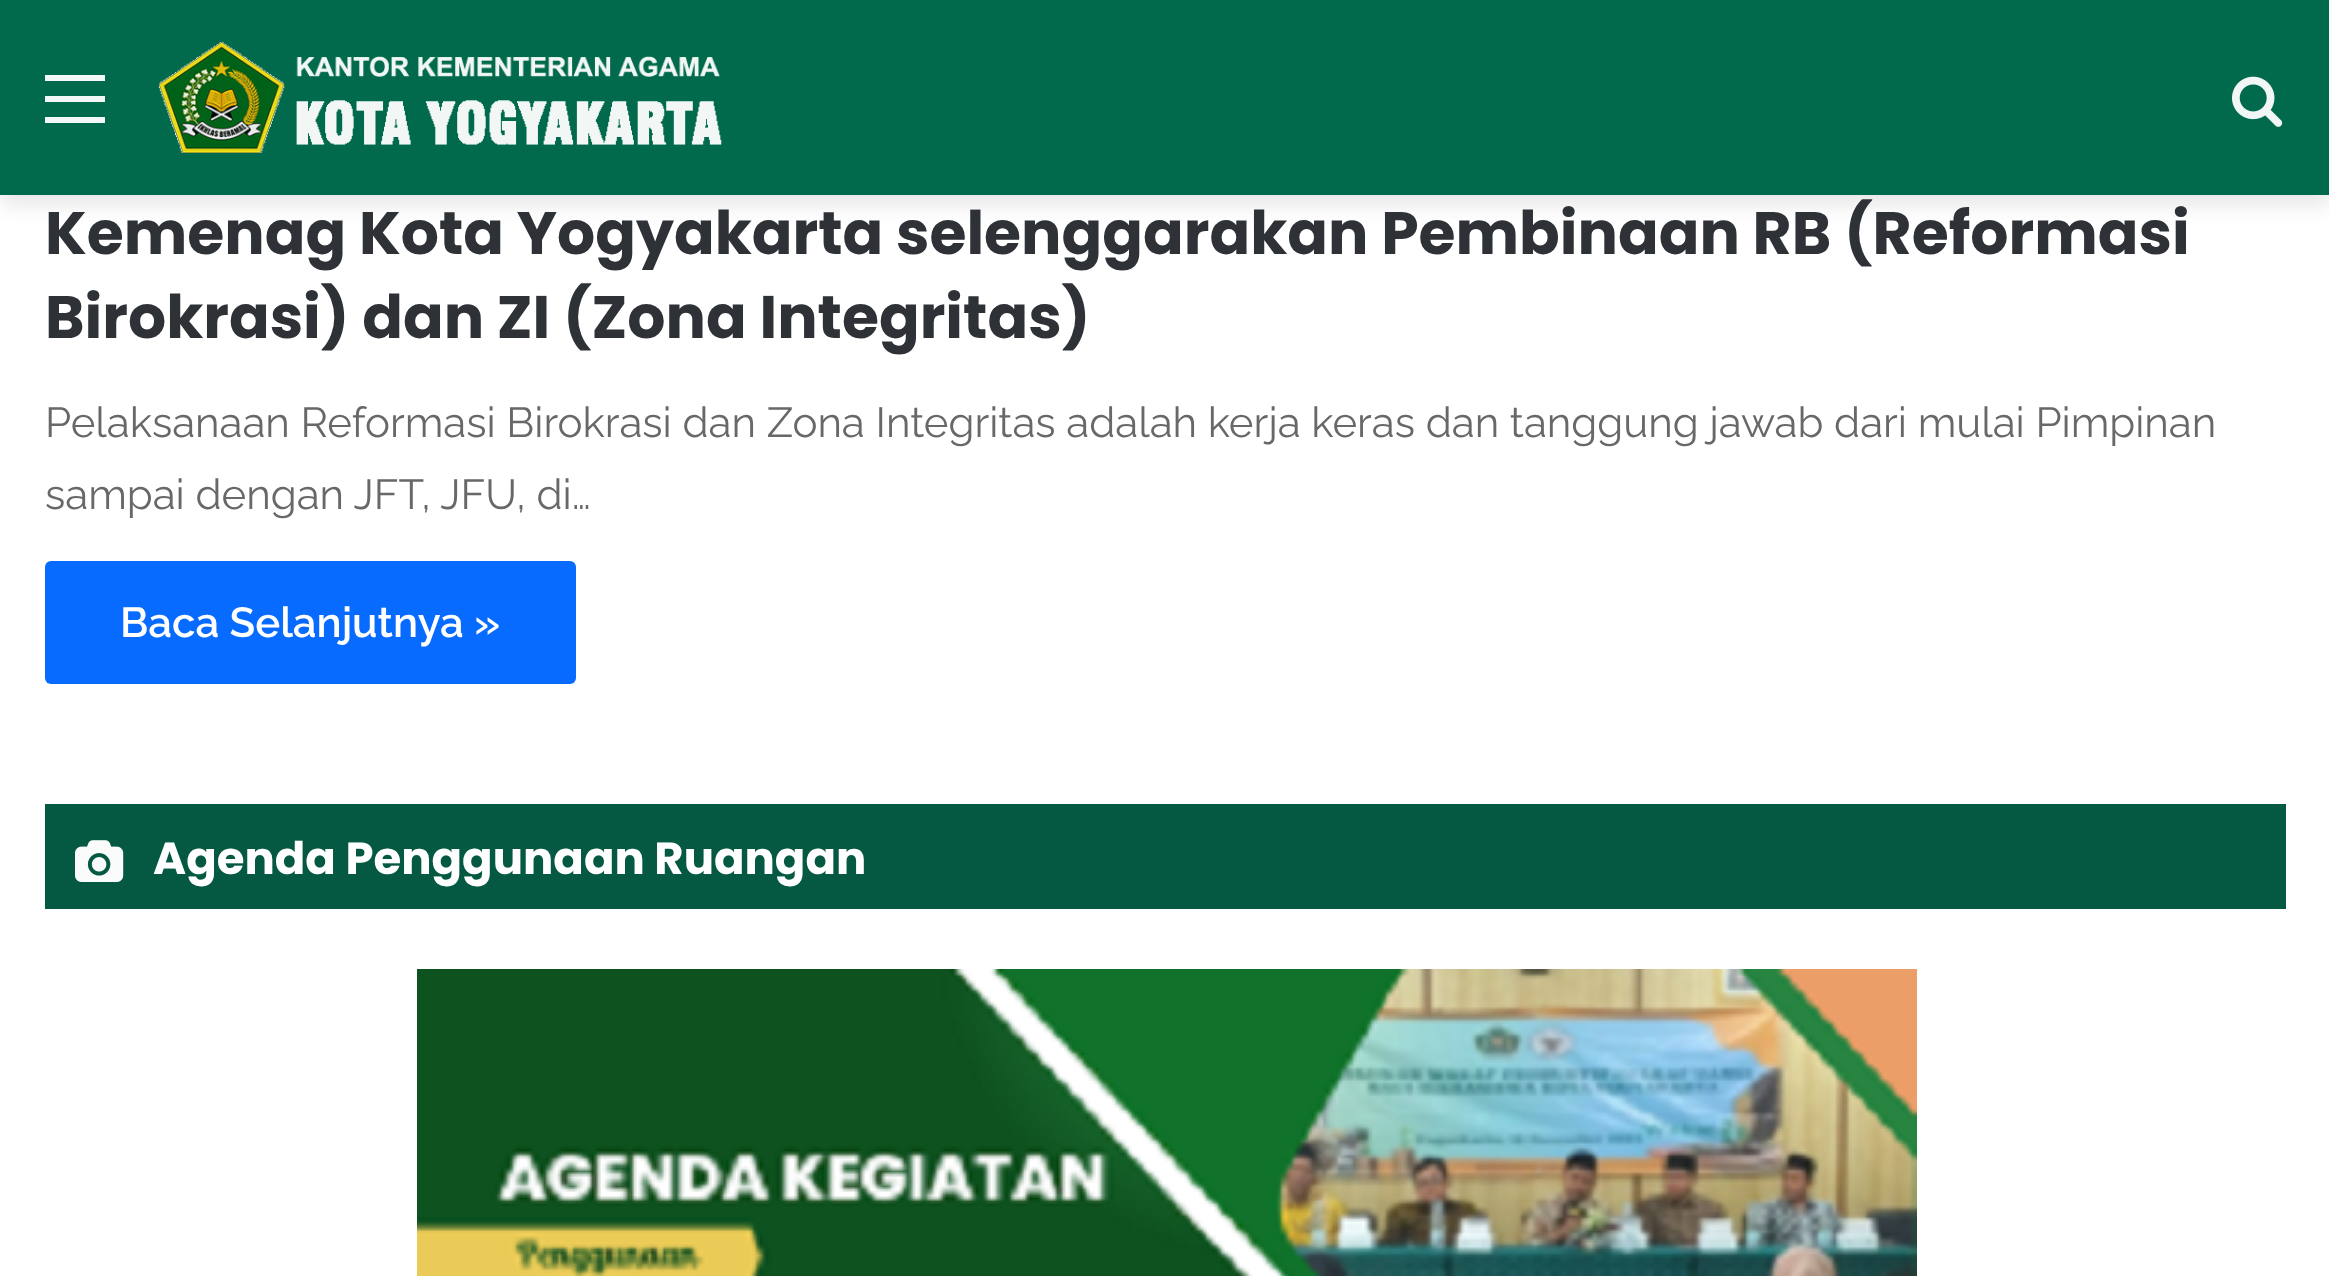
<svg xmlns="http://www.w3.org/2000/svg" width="2329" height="1276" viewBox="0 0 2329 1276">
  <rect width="100%" height="100%" fill="#fff"/>
  <path d="M0 9h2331v195H0z" fill="#0000001a" filter="blur(10.5px)"/>
  <path d="M0 0h2329v195H0z" fill="#016a4c"/>
  <path d="M45 96h60v6H45z" fill="#f2f8f6"/>
  <path d="M45 75h60v6H45z" fill="#f2f8f6"/>
  <path d="M45 117h60v6H45z" fill="#f2f8f6"/>
  <image x="158" y="42" width="564" height="111" href="img/1.png"/>
  <image x="2232" y="76" width="51" height="51" href="img/2.png"/>
  <rect x="45" y="561" width="531" height="123" rx="6" fill="#086bff"/>
  <path d="M45 804h2241v105H45z" fill="#055842"/>
  <image x="75" y="840" width="49" height="42" href="img/3.png"/>
  <image x="417" y="969" width="1500" height="307" href="img/4.png"/>
  <g font-family="Poppins" font-size="60" font-weight="bold" fill="#2e3136">
    <text x="45" y="254">Kemenag Kota Yogyakarta selenggarakan Pembinaan RB (Reformasi</text>
    <text x="45" y="338">Birokrasi) dan ZI (Zona Integritas)</text>
  </g>
  <g font-family="Raleway" font-size="42" fill="#686868">
    <text x="45" y="437">Pelaksanaan Reformasi Birokrasi dan Zona Integritas adalah kerja keras dan tanggung jawab dari mulai Pimpinan</text>
    <text x="45" y="509">sampai dengan JFT, JFU, di…</text>
  </g>
  <text x="120" y="637" font-family="Raleway" font-size="42" font-weight="600" fill="#fff">Baca Selanjutnya »</text>
  <text x="153" y="874" font-family="Poppins" font-size="45" font-weight="bold" fill="#fff">Agenda Penggunaan Ruangan</text>
</svg>
